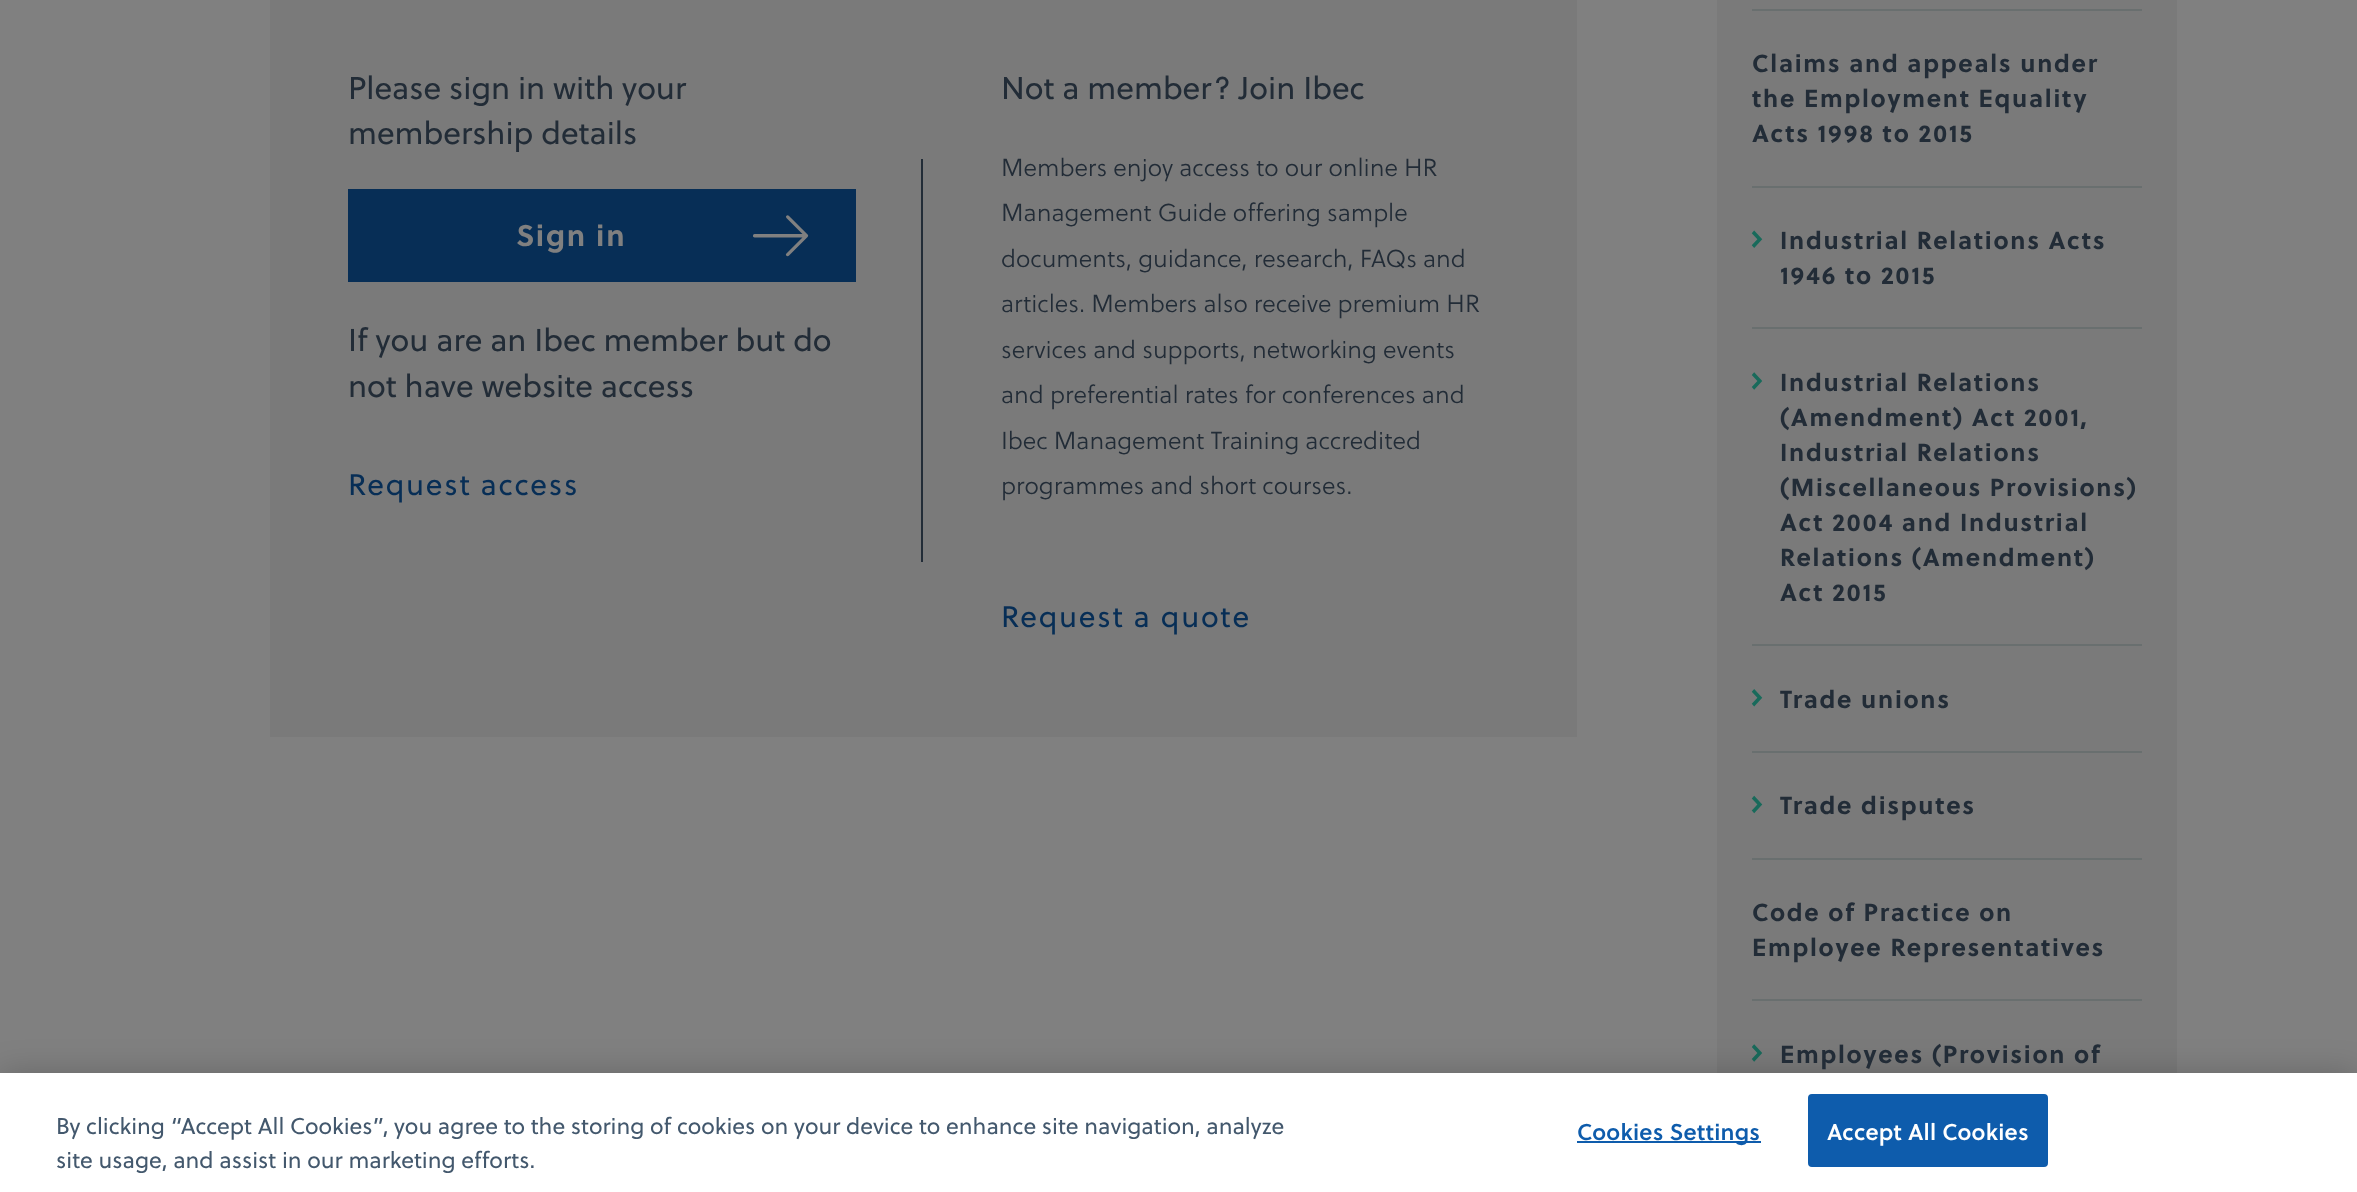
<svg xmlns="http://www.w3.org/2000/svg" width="2357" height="1192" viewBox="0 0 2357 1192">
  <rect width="100%" height="100%" fill="#808080"/>
  <path d="M270 0h1307v737H270z" fill="#7a7a7a"/>
  <path d="M348 189h508v93H348z" fill="#072e56"/>
  <image x="753" y="215" width="56" height="42" href="img/1.png"/>
  <path d="M921 159h2v403H921z" fill="#222c37"/>
  <path d="M1717 0h460v1073H1717z" fill="#7a7a7a"/>
  <path d="M1752 9h390v2H1752z" fill="#696f6f"/>
  <path d="M1752 186h390v2H1752z" fill="#696f6f"/>
  <image x="1751" y="230" width="12" height="18" href="img/2.png"/>
  <path d="M1752 327h390v2H1752z" fill="#696f6f"/>
  <image x="1751" y="372" width="12" height="18" href="img/3.png"/>
  <path d="M1752 644h390v2H1752z" fill="#696f6f"/>
  <image x="1751" y="689" width="12" height="18" href="img/4.png"/>
  <path d="M1752 751h390v2H1752z" fill="#696f6f"/>
  <image x="1751" y="795" width="12" height="19" href="img/5.png"/>
  <path d="M1752 858h390v2H1752z" fill="#696f6f"/>
  <path d="M1752 999h390v2H1752z" fill="#696f6f"/>
  <image x="1751" y="1044" width="12" height="18" href="img/3.png"/>
  <path d="M0 1073h2357v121H0z" fill="#00000033" filter="blur(16px)"/>
  <path d="M0 1073h2357v119H0z" fill="#fff"/>
  <path d="M1577 1141h184v2H1577z" fill="#0e5cac"/>
  <rect x="1809" y="1095" width="238" height="71" rx="3" fill="#0e5cac" stroke="#0e5cac" stroke-width="2"/>
  <g font-family="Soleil" font-size="31.5" fill="#222c37">
    <text x="348" y="99">Please sign in with your</text>
    <text x="348" y="144">membership details</text>
  </g>
  <text x="516" y="246" font-family="Soleil" font-size="29.75" font-weight="bold" letter-spacing="1.75" fill="#808080">Sign in</text>
  <g font-family="Soleil" font-size="31.5" fill="#222c37">
    <text x="348" y="351">If you are an Ibec member but do</text>
    <text x="348" y="397">not have website access</text>
  </g>
  <text x="348" y="495" font-family="Soleil" font-size="29.75" letter-spacing="1.75" fill="#072e56">Request access</text>
  <text x="1001" y="99" font-family="Soleil" font-size="31.5" fill="#222c37">Not a member? Join Ibec</text>
  <g font-family="Soleil" font-size="24.5" font-weight="300" fill="#222c37">
    <text x="1001" y="176">Members enjoy access to our online HR</text>
    <text x="1001" y="221">Management Guide offering sample</text>
    <text x="1001" y="267">documents, guidance, research, FAQs and</text>
    <text x="1001" y="312">articles. Members also receive premium HR</text>
    <text x="1001" y="358">services and supports, networking events</text>
    <text x="1001" y="403">and preferential rates for conferences and</text>
    <text x="1001" y="449">Ibec Management Training accredited</text>
    <text x="1001" y="494">programmes and short courses.</text>
  </g>
  <text x="1001" y="627" font-family="Soleil" font-size="29.75" letter-spacing="1.75" fill="#072e56">Request a quote</text>
  <g font-family="Soleil" font-size="24.5" font-weight="bold" letter-spacing="1.75" fill="#222c37">
    <text x="1752" y="72">Claims and appeals under</text>
    <text x="1752" y="107">the Employment Equality</text>
    <text x="1752" y="142">Acts 1998 to 2015</text>
    <text x="1780" y="249">Industrial Relations Acts</text>
    <text x="1780" y="284">1946 to 2015</text>
    <text x="1780" y="391">Industrial Relations</text>
    <text x="1780" y="426">(Amendment) Act 2001,</text>
    <text x="1780" y="461">Industrial Relations</text>
    <text x="1780" y="496">(Miscellaneous Provisions)</text>
    <text x="1780" y="531">Act 2004 and Industrial</text>
    <text x="1780" y="566">Relations (Amendment)</text>
    <text x="1780" y="601">Act 2015</text>
    <text x="1780" y="708">Trade unions</text>
    <text x="1780" y="814">Trade disputes</text>
    <text x="1752" y="921">Code of Practice on</text>
    <text x="1752" y="956">Employee Representatives</text>
    <text x="1780" y="1063">Employees (Provision of</text>
  </g>
  <g font-family="Soleil" font-size="22.75" fill="#43586d">
    <text x="56" y="1134">By clicking “Accept All Cookies”, you agree to the storing of cookies on your device to enhance site navigation, analyze</text>
    <text x="56" y="1168">site usage, and assist in our marketing efforts.</text>
  </g>
  <text x="1577" y="1140" font-family="Soleil" font-size="22.75" font-weight="600" letter-spacing="0.25" fill="#0e5cac">Cookies Settings</text>
  <text x="1827" y="1140" font-family="Soleil" font-size="22.75" font-weight="600" letter-spacing="0.25" fill="#fff">Accept All Cookies</text>
</svg>
